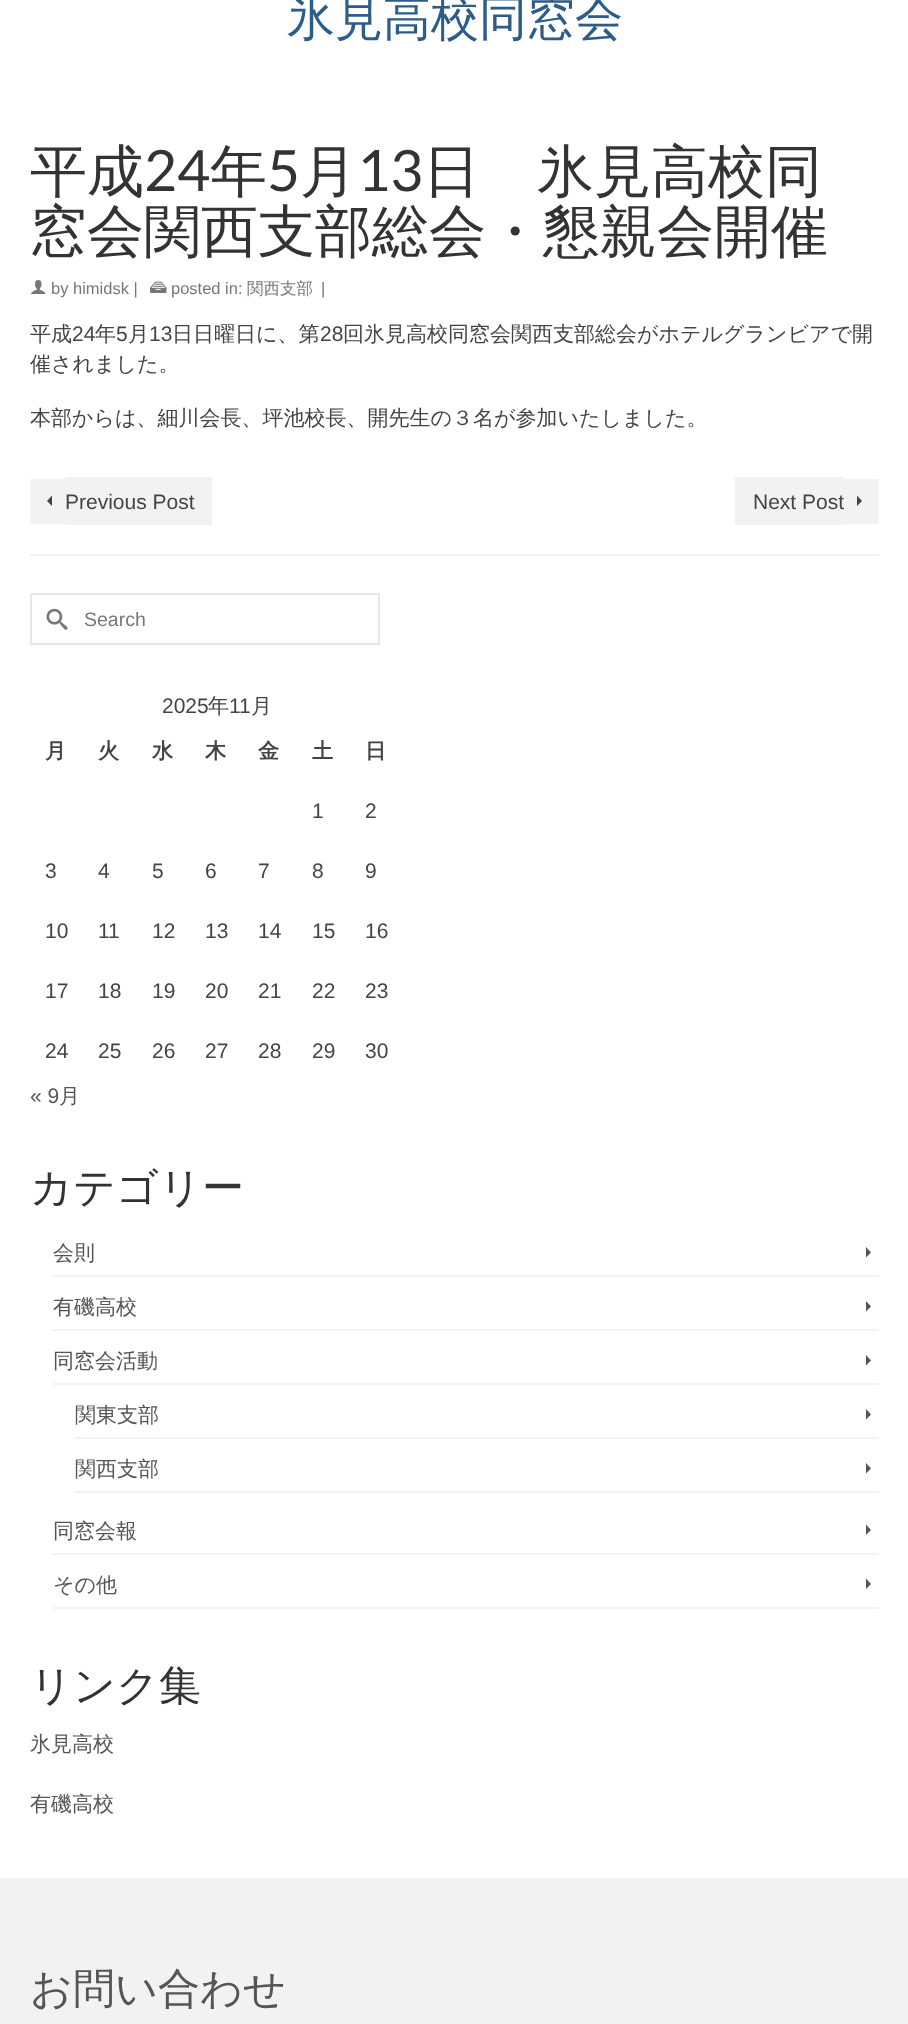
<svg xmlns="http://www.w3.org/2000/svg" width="908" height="2024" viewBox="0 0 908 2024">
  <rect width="100%" height="100%" fill="#fff"/>
  <image x="31" y="280" width="15" height="14" href="img/1.png"/>
  <image x="150" y="281" width="17" height="12" href="img/2.png"/>
  <path d="M30 554h849v2H30z" fill="#f2f2f2"/>
  <path d="M30 479h35v45H30z" fill="#f2f2f2"/>
  <path d="M65 477h147v48H65z" fill="#f2f2f2"/>
  <path d="M52 495.5L47 501L52 506Z" fill="#444"/>
  <path d="M735 477h110v48H735z" fill="#f2f2f2"/>
  <path d="M845 479h34v45H845z" fill="#f2f2f2"/>
  <path d="M857 506L862 501L857 495.5Z" fill="#444"/>
  <path d="M31 594h348v50H31z" fill="none" stroke="#e7e7e7" stroke-width="2"/>
  <image x="46" y="608" width="22" height="22" href="img/3.png"/>
  <path d="M53 1275h826v2H53z" fill="#f2f2f2"/>
  <path d="M866 1257.5L871 1252.5L866 1247Z" fill="#555"/>
  <path d="M53 1329h826v2H53z" fill="#f2f2f2"/>
  <path d="M866 1311.5L871 1306.5L866 1301Z" fill="#555"/>
  <path d="M53 1383h826v2H53z" fill="#f2f2f2"/>
  <path d="M866 1365.5L871 1360.5L866 1355Z" fill="#555"/>
  <path d="M75 1437h804v2H75z" fill="#f2f2f2"/>
  <path d="M866 1419.5L871 1414.5L866 1409Z" fill="#555"/>
  <path d="M75 1491h804v2H75z" fill="#f2f2f2"/>
  <path d="M866 1473.5L871 1468.5L866 1463Z" fill="#555"/>
  <path d="M53 1553h826v2H53z" fill="#f2f2f2"/>
  <path d="M866 1535L871 1530L866 1524.5Z" fill="#555"/>
  <path d="M53 1607h826v2H53z" fill="#f2f2f2"/>
  <path d="M866 1589L871 1584L866 1578.5Z" fill="#555"/>
  <path d="M0 1878h908v146H0z" fill="#f2f2f2"/>
  <text x="287" y="35" font-family="WenQuanYi Zen Hei" font-size="48" font-weight="500" fill="#2d5c88">氷見高校同窓会</text>
  <text x="30" y="191" font-family="WenQuanYi Zen Hei" font-size="57" font-weight="500" fill="#333">平成</text>
  <text x="144" y="191" font-family="Lato" font-size="57" fill="#333">24</text>
  <text x="210" y="191" font-family="WenQuanYi Zen Hei" font-size="57" font-weight="500" fill="#333">年</text>
  <text x="267" y="191" font-family="Lato" font-size="57" fill="#333">5</text>
  <text x="300" y="191" font-family="WenQuanYi Zen Hei" font-size="57" font-weight="500" fill="#333">月</text>
  <text x="357" y="191" font-family="Lato" font-size="57" fill="#333">13</text>
  <g font-family="WenQuanYi Zen Hei" font-size="57" font-weight="500" fill="#333">
    <text x="423" y="191">日　氷見高校同</text>
    <text x="30" y="251">窓会関西支部総会・懇親会開催</text>
  </g>
  <g font-family="Liberation Sans" font-size="16.5" fill="#777">
    <text x="51" y="294">by himidsk |</text>
    <text x="171" y="294">posted in:</text>
  </g>
  <text x="247" y="294" font-family="WenQuanYi Zen Hei" font-size="16.5" font-weight="500" fill="#777">関西支部</text>
  <text x="321" y="294" font-family="Liberation Sans" font-size="16.5" fill="#777">|</text>
  <text x="30" y="341" font-family="WenQuanYi Zen Hei" font-size="21" font-weight="500" fill="#444">平成</text>
  <text x="72" y="341" font-family="Liberation Sans" font-size="21" fill="#444">24</text>
  <text x="95" y="341" font-family="WenQuanYi Zen Hei" font-size="21" font-weight="500" fill="#444">年</text>
  <text x="116" y="341" font-family="Liberation Sans" font-size="21" fill="#444">5</text>
  <text x="128" y="341" font-family="WenQuanYi Zen Hei" font-size="21" font-weight="500" fill="#444">月</text>
  <text x="149" y="341" font-family="Liberation Sans" font-size="21" fill="#444">13</text>
  <text x="172" y="341" font-family="WenQuanYi Zen Hei" font-size="21" font-weight="500" fill="#444">日日曜日に、第</text>
  <text x="320" y="341" font-family="Liberation Sans" font-size="21" fill="#444">28</text>
  <g font-family="WenQuanYi Zen Hei" font-size="21" font-weight="500" fill="#444">
    <text x="343" y="341">回氷見高校同窓会関西支部総会がホテルグランビアで開</text>
    <text x="30" y="371">催されました。</text>
    <text x="30" y="425">本部からは、細川会長、坪池校長、開先生の３名が参加いたしました。</text>
  </g>
  <g font-family="Liberation Sans" font-size="21" fill="#444">
    <text x="65" y="509">Previous Post</text>
    <text x="753" y="509">Next Post</text>
  </g>
  <text x="84" y="626" font-family="Liberation Sans" font-size="19.5" fill="#777">Search</text>
  <text x="162" y="713" font-family="Liberation Sans" font-size="21" fill="#444">2025</text>
  <text x="208" y="713" font-family="WenQuanYi Zen Hei" font-size="21" font-weight="500" fill="#444">年</text>
  <text x="229" y="713" font-family="Liberation Sans" font-size="21" fill="#444">11</text>
  <text x="251" y="713" font-family="WenQuanYi Zen Hei" font-size="21" font-weight="500" fill="#444">月</text>
  <g font-family="WenQuanYi Zen Hei" font-size="21" font-weight="bold" fill="#444">
    <text x="45" y="758">月</text>
    <text x="98" y="758">火</text>
    <text x="152" y="758">水</text>
    <text x="205" y="758">木</text>
    <text x="258" y="758">金</text>
    <text x="312" y="758">土</text>
    <text x="365" y="758">日</text>
  </g>
  <g font-family="Liberation Sans" font-size="21" fill="#444">
    <text x="312" y="818">1</text>
    <text x="365" y="818">2</text>
    <text x="45" y="878">3</text>
    <text x="98" y="878">4</text>
    <text x="152" y="878">5</text>
    <text x="205" y="878">6</text>
    <text x="258" y="878">7</text>
    <text x="312" y="878">8</text>
    <text x="365" y="878">9</text>
    <text x="45" y="938">10</text>
    <text x="98" y="938">11</text>
    <text x="152" y="938">12</text>
    <text x="205" y="938">13</text>
    <text x="258" y="938">14</text>
    <text x="312" y="938">15</text>
    <text x="365" y="938">16</text>
    <text x="45" y="998">17</text>
    <text x="98" y="998">18</text>
    <text x="152" y="998">19</text>
    <text x="205" y="998">20</text>
    <text x="258" y="998">21</text>
    <text x="312" y="998">22</text>
    <text x="365" y="998">23</text>
    <text x="45" y="1058">24</text>
    <text x="98" y="1058">25</text>
    <text x="152" y="1058">26</text>
    <text x="205" y="1058">27</text>
    <text x="258" y="1058">28</text>
    <text x="312" y="1058">29</text>
    <text x="365" y="1058">30</text>
  </g>
  <text x="30" y="1103" font-family="Liberation Sans" font-size="21" fill="#555">« 9</text>
  <text x="59" y="1103" font-family="WenQuanYi Zen Hei" font-size="21" font-weight="500" fill="#555">月</text>
  <text x="30" y="1202" font-family="WenQuanYi Zen Hei" font-size="42" font-weight="500" fill="#333">カテゴリー</text>
  <g font-family="WenQuanYi Zen Hei" font-size="21" font-weight="500" fill="#555">
    <text x="53" y="1260">会則</text>
    <text x="53" y="1314">有磯高校</text>
    <text x="53" y="1368">同窓会活動</text>
    <text x="75" y="1422">関東支部</text>
    <text x="75" y="1476">関西支部</text>
    <text x="53" y="1538">同窓会報</text>
    <text x="53" y="1592">その他</text>
  </g>
  <text x="30" y="1700" font-family="WenQuanYi Zen Hei" font-size="42" font-weight="500" fill="#333">リンク集</text>
  <g font-family="WenQuanYi Zen Hei" font-size="21" font-weight="500" fill="#555">
    <text x="30" y="1751">氷見高校</text>
    <text x="30" y="1811">有磯高校</text>
  </g>
  <text x="30" y="2003" font-family="WenQuanYi Zen Hei" font-size="42" font-weight="500" fill="#555">お問い合わせ</text>
</svg>
